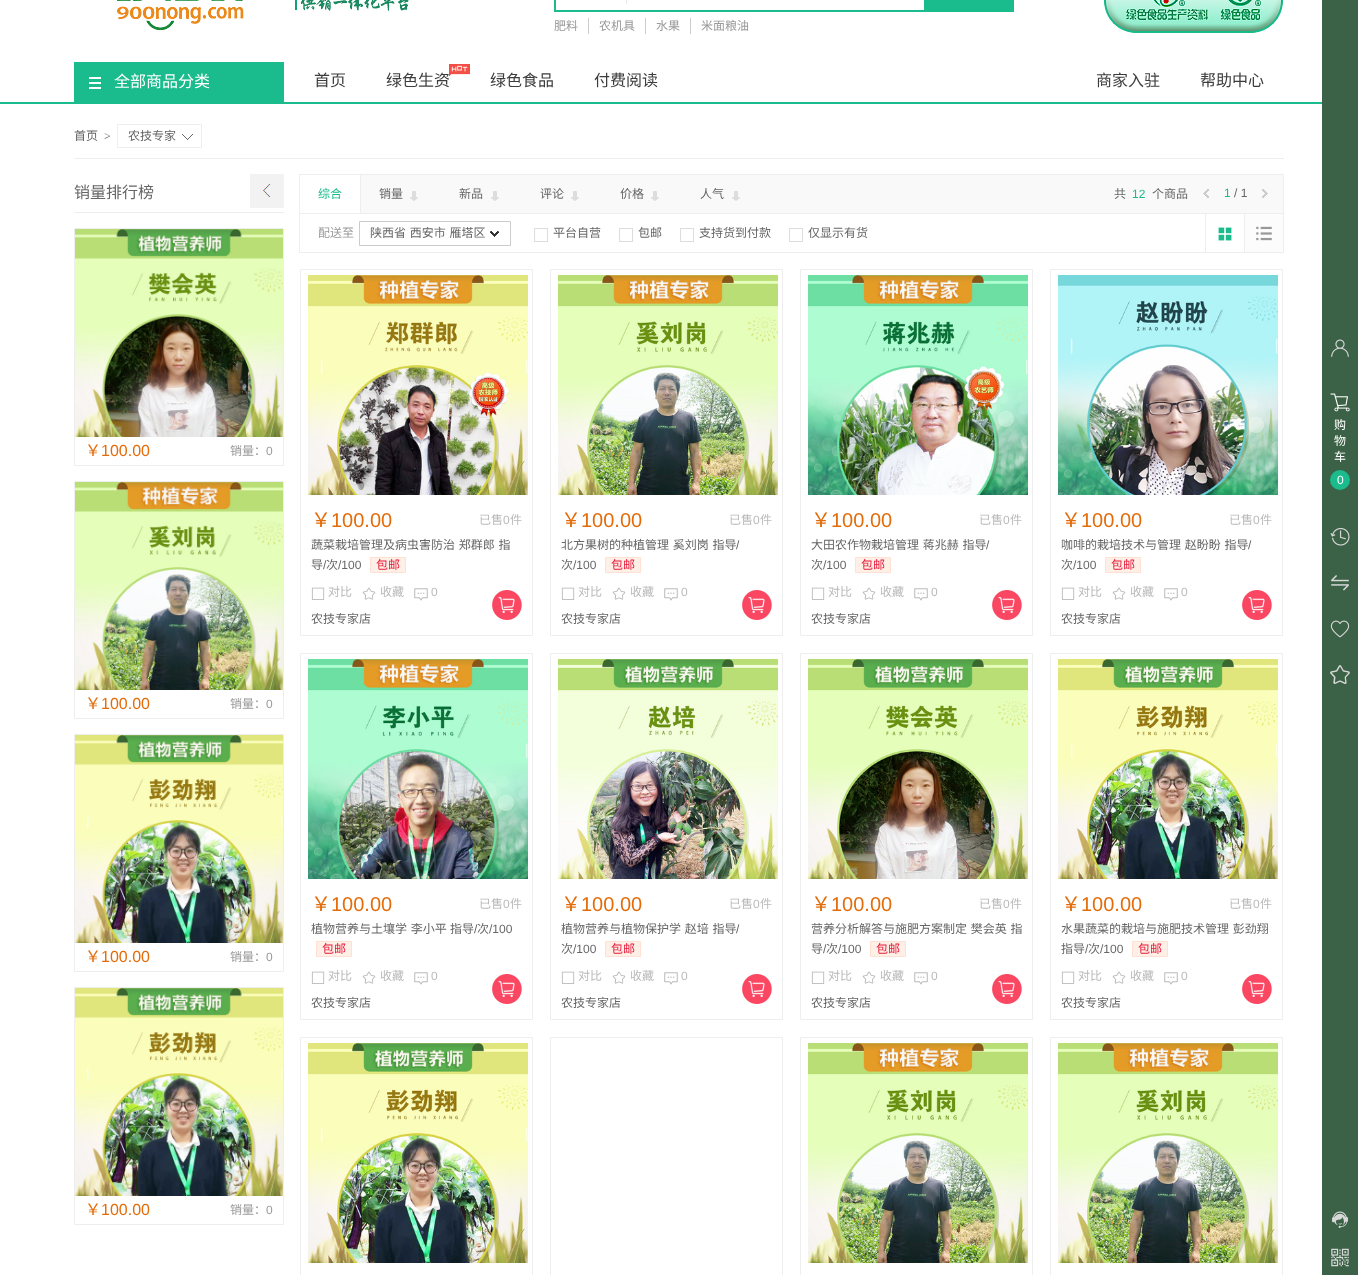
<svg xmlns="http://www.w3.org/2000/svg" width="1358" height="1275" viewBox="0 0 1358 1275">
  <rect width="100%" height="100%" fill="#fff"/>
  <image x="117" y="0" width="127" height="30" href="img/1.png"/>
  <image x="295" y="0" width="114" height="11" href="img/2.png"/>
  <path d="M554 10h460v2H554z" fill="#1abb8c"/>
  <path d="M554 0h2v12H554z" fill="#1abb8c"/>
  <path d="M626 0h1v4H626z" fill="#e9e9e9"/>
  <path d="M924 0h90v10H924z" fill="#1abb8c"/>
  <path d="M588 18h1v16H588z" fill="#ccc"/>
  <path d="M645 18h1v16H645z" fill="#ccc"/>
  <path d="M690 18h1v16H690z" fill="#ccc"/>
  <image x="1104" y="0" width="179" height="33" href="img/3.png"/>
  <path d="M0 102h1322v2H0z" fill="#1abb8c"/>
  <path d="M74 62h210v40H74z" fill="#1abb8c"/>
  <image x="89" y="77" width="12" height="12" href="img/4.png"/>
  <path d="M117.5 124.5h84v23H117.5z" fill="none" stroke="#eee"/>
  <image x="182" y="134" width="11" height="6" href="img/6.png"/>
  <path d="M74 158h1210v1H74z" fill="#eee"/>
  <image x="250" y="174" width="34" height="34" href="img/7.png"/>
  <path d="M74 212h210v1H74z" fill="#eee"/>
  <path d="M74.5 228.5h209v237H74.5z" fill="none" stroke="#eee"/>
  <image x="75" y="229" width="208" height="208" href="img/8.png"/>
  <path d="M74.5 481.5h209v237H74.5z" fill="none" stroke="#eee"/>
  <image x="75" y="482" width="208" height="208" href="img/9.png"/>
  <path d="M74.5 734.5h209v237H74.5z" fill="none" stroke="#eee"/>
  <image x="75" y="735" width="208" height="208" href="img/10.png"/>
  <path d="M74.5 987.5h209v237H74.5z" fill="none" stroke="#eee"/>
  <image x="75" y="988" width="208" height="208" href="img/10.png"/>
  <path d="M299.5 174.5h984v78H299.5z" fill="none" stroke="#eee"/>
  <path d="M361 175h922v38H361z" fill="#f9f9f9"/>
  <path d="M360 175h1v38H360z" fill="#eee"/>
  <image x="410" y="191" width="8" height="10" href="img/11.png"/>
  <image x="491" y="191" width="8" height="10" href="img/11.png"/>
  <image x="571" y="191" width="8" height="10" href="img/11.png"/>
  <image x="651" y="191" width="8" height="10" href="img/11.png"/>
  <image x="732" y="191" width="8" height="10" href="img/11.png"/>
  <image x="1203" y="189" width="6" height="9" href="img/12.png"/>
  <image x="1262" y="189" width="6" height="9" href="img/13.png"/>
  <path d="M300 213h983v1H300z" fill="#eee"/>
  <path d="M359.5 221.5h151v24H359.5z" fill="none" stroke="#ccc"/>
  <image x="490" y="231" width="9" height="6" href="img/14.png"/>
  <image x="534" y="228" width="14" height="14" href="img/15.png"/>
  <image x="619" y="228" width="14" height="14" href="img/15.png"/>
  <image x="680" y="228" width="14" height="14" href="img/15.png"/>
  <image x="789" y="228" width="14" height="14" href="img/15.png"/>
  <path d="M1245 214h38v38H1245z" fill="#fcfcfc"/>
  <path d="M1244 214h1v38H1244z" fill="#eee"/>
  <path d="M1205 214h1v38H1205z" fill="#eee"/>
  <image x="1218" y="227" width="14" height="14" href="img/16.png"/>
  <image x="1256" y="226" width="16" height="15" href="img/17.png"/>
  <path d="M300.5 269.5h232v366H300.5z" fill="none" stroke="#eee"/>
  <image x="308" y="275" width="220" height="220" href="img/18.png"/>
  <path d="M370.5 557.5h35v15H370.5z" fill="#fff0e7" stroke="#ffe1d3"/>
  <image x="311" y="587" width="14" height="13" href="img/19.png"/>
  <image x="362" y="587" width="14" height="13" href="img/20.png"/>
  <image x="414" y="588" width="14" height="13" href="img/21.png"/>
  <image x="492" y="590" width="30" height="30" href="img/22.png"/>
  <path d="M550.5 269.5h232v366H550.5z" fill="none" stroke="#eee"/>
  <image x="558" y="275" width="220" height="220" href="img/23.png"/>
  <path d="M605.5 557.5h35v15H605.5z" fill="#fff0e7" stroke="#ffe1d3"/>
  <image x="561" y="587" width="14" height="13" href="img/19.png"/>
  <image x="612" y="587" width="14" height="13" href="img/20.png"/>
  <image x="664" y="588" width="14" height="13" href="img/21.png"/>
  <image x="742" y="590" width="30" height="30" href="img/22.png"/>
  <path d="M800.5 269.5h232v366H800.5z" fill="none" stroke="#eee"/>
  <image x="808" y="275" width="220" height="220" href="img/24.png"/>
  <path d="M855.5 557.5h35v15H855.5z" fill="#fff0e7" stroke="#ffe1d3"/>
  <image x="811" y="587" width="14" height="13" href="img/19.png"/>
  <image x="862" y="587" width="14" height="13" href="img/20.png"/>
  <image x="914" y="588" width="14" height="13" href="img/21.png"/>
  <image x="992" y="590" width="30" height="30" href="img/22.png"/>
  <path d="M1050.5 269.5h232v366H1050.5z" fill="none" stroke="#eee"/>
  <image x="1058" y="275" width="220" height="220" href="img/25.png"/>
  <path d="M1105.5 557.5h35v15H1105.5z" fill="#fff0e7" stroke="#ffe1d3"/>
  <image x="1061" y="587" width="14" height="13" href="img/19.png"/>
  <image x="1112" y="587" width="14" height="13" href="img/20.png"/>
  <image x="1164" y="588" width="14" height="13" href="img/21.png"/>
  <image x="1242" y="590" width="30" height="30" href="img/22.png"/>
  <path d="M300.5 653.5h232v366H300.5z" fill="none" stroke="#eee"/>
  <image x="308" y="659" width="220" height="220" href="img/26.png"/>
  <path d="M316.5 941.5h35v15H316.5z" fill="#fff0e7" stroke="#ffe1d3"/>
  <image x="311" y="971" width="14" height="13" href="img/19.png"/>
  <image x="362" y="971" width="14" height="13" href="img/20.png"/>
  <image x="414" y="972" width="14" height="13" href="img/21.png"/>
  <image x="492" y="974" width="30" height="30" href="img/22.png"/>
  <path d="M550.5 653.5h232v366H550.5z" fill="none" stroke="#eee"/>
  <image x="558" y="659" width="220" height="220" href="img/27.png"/>
  <path d="M605.5 941.5h35v15H605.5z" fill="#fff0e7" stroke="#ffe1d3"/>
  <image x="561" y="971" width="14" height="13" href="img/19.png"/>
  <image x="612" y="971" width="14" height="13" href="img/20.png"/>
  <image x="664" y="972" width="14" height="13" href="img/21.png"/>
  <image x="742" y="974" width="30" height="30" href="img/22.png"/>
  <path d="M800.5 653.5h232v366H800.5z" fill="none" stroke="#eee"/>
  <image x="808" y="659" width="220" height="220" href="img/28.png"/>
  <path d="M870.5 941.5h35v15H870.5z" fill="#fff0e7" stroke="#ffe1d3"/>
  <image x="811" y="971" width="14" height="13" href="img/19.png"/>
  <image x="862" y="971" width="14" height="13" href="img/20.png"/>
  <image x="914" y="972" width="14" height="13" href="img/21.png"/>
  <image x="992" y="974" width="30" height="30" href="img/22.png"/>
  <path d="M1050.5 653.5h232v366H1050.5z" fill="none" stroke="#eee"/>
  <image x="1058" y="659" width="220" height="220" href="img/29.png"/>
  <path d="M1132.5 941.5h35v15H1132.5z" fill="#fff0e7" stroke="#ffe1d3"/>
  <image x="1061" y="971" width="14" height="13" href="img/19.png"/>
  <image x="1112" y="971" width="14" height="13" href="img/20.png"/>
  <image x="1164" y="972" width="14" height="13" href="img/21.png"/>
  <image x="1242" y="974" width="30" height="30" href="img/22.png"/>
  <path d="M300.5 1037.5h232v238H300.5z" fill="none" stroke="#eee"/>
  <image x="308" y="1043" width="220" height="220" href="img/30.png"/>
  <path d="M550.5 1037.5h232v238H550.5z" fill="none" stroke="#eee"/>
  <path d="M800.5 1037.5h232v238H800.5z" fill="none" stroke="#eee"/>
  <image x="808" y="1043" width="220" height="220" href="img/31.png"/>
  <path d="M1050.5 1037.5h232v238H1050.5z" fill="none" stroke="#eee"/>
  <image x="1058" y="1043" width="220" height="220" href="img/32.png"/>
  <path d="M1322 0h36v1275H1322z" fill="#3b6246"/>
  <image x="1331" y="339" width="18" height="18" href="img/33.png"/>
  <image x="1330" y="393" width="20" height="19" href="img/34.png"/>
  <circle cx="1340" cy="480" r="10" fill="#1abb8c"/>
  <image x="1330" y="527" width="20" height="19" href="img/35.png"/>
  <image x="1331" y="575" width="18" height="16" href="img/36.png"/>
  <image x="1330" y="620" width="20" height="18" href="img/37.png"/>
  <image x="1330" y="665" width="20" height="19" href="img/38.png"/>
  <image x="1332" y="1211" width="16" height="17" href="img/39.png"/>
  <image x="1331" y="1248" width="18" height="19" href="img/40.png"/>
  <g font-family="Noto Sans CJK SC" font-size="12" fill="#999">
    <text x="554" y="30">肥料</text>
    <text x="599" y="30">农机具</text>
    <text x="656" y="30">水果</text>
    <text x="701" y="30">米面粮油</text>
  </g>
  <text x="114" y="87" font-family="Noto Sans CJK SC" font-size="16" fill="#fff">全部商品分类</text>
  <g font-family="Noto Sans CJK SC" font-size="16" fill="#3c3c3c">
    <text x="314" y="86">首页</text>
    <text x="386" y="86">绿色生资</text>
  </g>
  <image x="449" y="64" width="21" height="12" href="img/5.png"/>
  <g font-family="Noto Sans CJK SC" font-size="16" fill="#3c3c3c">
    <text x="490" y="86">绿色食品</text>
    <text x="594" y="86">付费阅读</text>
    <text x="1096" y="86">商家入驻</text>
    <text x="1200" y="86">帮助中心</text>
  </g>
  <text x="74" y="140" font-family="Noto Sans CJK SC" font-size="12" fill="#666">首页</text>
  <text x="104" y="140" font-family="Liberation Serif" font-size="12" fill="#666">&gt;</text>
  <text x="128" y="140" font-family="Noto Sans CJK SC" font-size="12" fill="#666">农技专家</text>
  <text x="74" y="198" font-family="Noto Sans CJK SC" font-size="16" fill="#666">销量排行榜</text>
  <text x="85" y="456" font-family="Noto Sans CJK SC" font-size="16" fill="#e36c09">￥</text>
  <text x="101" y="456" font-family="Liberation Sans" font-size="16" fill="#e36c09">100.00</text>
  <text x="230" y="455" font-family="Noto Sans CJK SC" font-size="12" fill="#999">销量：</text>
  <text x="266" y="455" font-family="Liberation Sans" font-size="12" fill="#999">0</text>
  <text x="85" y="709" font-family="Noto Sans CJK SC" font-size="16" fill="#e36c09">￥</text>
  <text x="101" y="709" font-family="Liberation Sans" font-size="16" fill="#e36c09">100.00</text>
  <text x="230" y="708" font-family="Noto Sans CJK SC" font-size="12" fill="#999">销量：</text>
  <text x="266" y="708" font-family="Liberation Sans" font-size="12" fill="#999">0</text>
  <text x="85" y="962" font-family="Noto Sans CJK SC" font-size="16" fill="#e36c09">￥</text>
  <text x="101" y="962" font-family="Liberation Sans" font-size="16" fill="#e36c09">100.00</text>
  <text x="230" y="961" font-family="Noto Sans CJK SC" font-size="12" fill="#999">销量：</text>
  <text x="266" y="961" font-family="Liberation Sans" font-size="12" fill="#999">0</text>
  <text x="85" y="1215" font-family="Noto Sans CJK SC" font-size="16" fill="#e36c09">￥</text>
  <text x="101" y="1215" font-family="Liberation Sans" font-size="16" fill="#e36c09">100.00</text>
  <text x="230" y="1214" font-family="Noto Sans CJK SC" font-size="12" fill="#999">销量：</text>
  <text x="266" y="1214" font-family="Liberation Sans" font-size="12" fill="#999">0</text>
  <text x="318" y="198" font-family="Noto Sans CJK SC" font-size="12" fill="#1abb8c">综合</text>
  <g font-family="Noto Sans CJK SC" font-size="12" fill="#666">
    <text x="379" y="198">销量</text>
    <text x="459" y="198">新品</text>
    <text x="540" y="198">评论</text>
    <text x="620" y="198">价格</text>
    <text x="700" y="198">人气</text>
    <text x="1114" y="198">共</text>
  </g>
  <text x="1132" y="198" font-family="Liberation Sans" font-size="12" fill="#1abb8c">12</text>
  <text x="1152" y="198" font-family="Noto Sans CJK SC" font-size="12" fill="#666">个商品</text>
  <text x="1224" y="197" font-family="Liberation Sans" font-size="12" fill="#1abb8c">1</text>
  <text x="1234" y="197" font-family="Liberation Sans" font-size="12" fill="#666">/ 1</text>
  <text x="318" y="237" font-family="Noto Sans CJK SC" font-size="12" fill="#999">配送至</text>
  <g font-family="Noto Sans CJK SC" font-size="12" fill="#666">
    <text x="370" y="237" word-spacing="1">陕西省 西安市 雁塔区</text>
    <text x="553" y="237">平台自营</text>
    <text x="638" y="237">包邮</text>
    <text x="699" y="237">支持货到付款</text>
    <text x="808" y="237">仅显示有货</text>
  </g>
  <text x="311" y="527" font-family="Noto Sans CJK SC" font-size="20" fill="#e36c09">￥</text>
  <text x="331" y="527" font-family="Liberation Sans" font-size="20" fill="#e36c09">100.00</text>
  <text x="479" y="524" font-family="Noto Sans CJK SC" font-size="12" fill="#b9b9b9">已售</text>
  <text x="503" y="524" font-family="Liberation Sans" font-size="12" fill="#b9b9b9">0</text>
  <text x="510" y="524" font-family="Noto Sans CJK SC" font-size="12" fill="#b9b9b9">件</text>
  <g font-family="Noto Sans CJK SC" font-size="12" fill="#666">
    <text x="311" y="549" word-spacing="1">蔬菜栽培管理及病虫害防治 郑群郎 指</text>
    <text x="311" y="569">导</text>
  </g>
  <text x="323" y="569" font-family="Liberation Sans" font-size="12" fill="#666">/</text>
  <text x="326" y="569" font-family="Noto Sans CJK SC" font-size="12" fill="#666">次</text>
  <text x="338" y="569" font-family="Liberation Sans" font-size="12" fill="#666">/100</text>
  <text x="376" y="569" font-family="Noto Sans CJK SC" font-size="12" fill="#e31939">包邮</text>
  <g font-family="Noto Sans CJK SC" font-size="12" fill="#b9b9b9">
    <text x="328" y="596">对比</text>
    <text x="380" y="596">收藏</text>
  </g>
  <text x="431" y="596" font-family="Liberation Sans" font-size="12" fill="#b9b9b9">0</text>
  <text x="311" y="623" font-family="Noto Sans CJK SC" font-size="12" fill="#666">农技专家店</text>
  <text x="561" y="527" font-family="Noto Sans CJK SC" font-size="20" fill="#e36c09">￥</text>
  <text x="581" y="527" font-family="Liberation Sans" font-size="20" fill="#e36c09">100.00</text>
  <text x="729" y="524" font-family="Noto Sans CJK SC" font-size="12" fill="#b9b9b9">已售</text>
  <text x="753" y="524" font-family="Liberation Sans" font-size="12" fill="#b9b9b9">0</text>
  <text x="760" y="524" font-family="Noto Sans CJK SC" font-size="12" fill="#b9b9b9">件</text>
  <text x="561" y="549" word-spacing="1" font-family="Noto Sans CJK SC" font-size="12" fill="#666">北方果树的种植管理 奚刘岗 指导</text>
  <text x="736" y="549" font-family="Liberation Sans" font-size="12" fill="#666">/</text>
  <text x="561" y="569" font-family="Noto Sans CJK SC" font-size="12" fill="#666">次</text>
  <text x="573" y="569" font-family="Liberation Sans" font-size="12" fill="#666">/100</text>
  <text x="611" y="569" font-family="Noto Sans CJK SC" font-size="12" fill="#e31939">包邮</text>
  <g font-family="Noto Sans CJK SC" font-size="12" fill="#b9b9b9">
    <text x="578" y="596">对比</text>
    <text x="630" y="596">收藏</text>
  </g>
  <text x="681" y="596" font-family="Liberation Sans" font-size="12" fill="#b9b9b9">0</text>
  <text x="561" y="623" font-family="Noto Sans CJK SC" font-size="12" fill="#666">农技专家店</text>
  <text x="811" y="527" font-family="Noto Sans CJK SC" font-size="20" fill="#e36c09">￥</text>
  <text x="831" y="527" font-family="Liberation Sans" font-size="20" fill="#e36c09">100.00</text>
  <text x="979" y="524" font-family="Noto Sans CJK SC" font-size="12" fill="#b9b9b9">已售</text>
  <text x="1003" y="524" font-family="Liberation Sans" font-size="12" fill="#b9b9b9">0</text>
  <text x="1010" y="524" font-family="Noto Sans CJK SC" font-size="12" fill="#b9b9b9">件</text>
  <text x="811" y="549" word-spacing="1" font-family="Noto Sans CJK SC" font-size="12" fill="#666">大田农作物栽培管理 蒋兆赫 指导</text>
  <text x="986" y="549" font-family="Liberation Sans" font-size="12" fill="#666">/</text>
  <text x="811" y="569" font-family="Noto Sans CJK SC" font-size="12" fill="#666">次</text>
  <text x="823" y="569" font-family="Liberation Sans" font-size="12" fill="#666">/100</text>
  <text x="861" y="569" font-family="Noto Sans CJK SC" font-size="12" fill="#e31939">包邮</text>
  <g font-family="Noto Sans CJK SC" font-size="12" fill="#b9b9b9">
    <text x="828" y="596">对比</text>
    <text x="880" y="596">收藏</text>
  </g>
  <text x="931" y="596" font-family="Liberation Sans" font-size="12" fill="#b9b9b9">0</text>
  <text x="811" y="623" font-family="Noto Sans CJK SC" font-size="12" fill="#666">农技专家店</text>
  <text x="1061" y="527" font-family="Noto Sans CJK SC" font-size="20" fill="#e36c09">￥</text>
  <text x="1081" y="527" font-family="Liberation Sans" font-size="20" fill="#e36c09">100.00</text>
  <text x="1229" y="524" font-family="Noto Sans CJK SC" font-size="12" fill="#b9b9b9">已售</text>
  <text x="1253" y="524" font-family="Liberation Sans" font-size="12" fill="#b9b9b9">0</text>
  <text x="1260" y="524" font-family="Noto Sans CJK SC" font-size="12" fill="#b9b9b9">件</text>
  <text x="1061" y="549" word-spacing="1" font-family="Noto Sans CJK SC" font-size="12" fill="#666">咖啡的栽培技术与管理 赵盼盼 指导</text>
  <text x="1248" y="549" font-family="Liberation Sans" font-size="12" fill="#666">/</text>
  <text x="1061" y="569" font-family="Noto Sans CJK SC" font-size="12" fill="#666">次</text>
  <text x="1073" y="569" font-family="Liberation Sans" font-size="12" fill="#666">/100</text>
  <text x="1111" y="569" font-family="Noto Sans CJK SC" font-size="12" fill="#e31939">包邮</text>
  <g font-family="Noto Sans CJK SC" font-size="12" fill="#b9b9b9">
    <text x="1078" y="596">对比</text>
    <text x="1130" y="596">收藏</text>
  </g>
  <text x="1181" y="596" font-family="Liberation Sans" font-size="12" fill="#b9b9b9">0</text>
  <text x="1061" y="623" font-family="Noto Sans CJK SC" font-size="12" fill="#666">农技专家店</text>
  <text x="311" y="911" font-family="Noto Sans CJK SC" font-size="20" fill="#e36c09">￥</text>
  <text x="331" y="911" font-family="Liberation Sans" font-size="20" fill="#e36c09">100.00</text>
  <text x="479" y="908" font-family="Noto Sans CJK SC" font-size="12" fill="#b9b9b9">已售</text>
  <text x="503" y="908" font-family="Liberation Sans" font-size="12" fill="#b9b9b9">0</text>
  <text x="510" y="908" font-family="Noto Sans CJK SC" font-size="12" fill="#b9b9b9">件</text>
  <g font-family="Noto Sans CJK SC" font-size="12" fill="#666">
    <text x="311" y="933" word-spacing="1">植物营养与土壤学 李小平</text>
    <text x="450" y="933">指导</text>
  </g>
  <text x="474" y="933" font-family="Liberation Sans" font-size="12" fill="#666">/</text>
  <text x="477" y="933" font-family="Noto Sans CJK SC" font-size="12" fill="#666">次</text>
  <text x="489" y="933" font-family="Liberation Sans" font-size="12" fill="#666">/100</text>
  <text x="322" y="953" font-family="Noto Sans CJK SC" font-size="12" fill="#e31939">包邮</text>
  <g font-family="Noto Sans CJK SC" font-size="12" fill="#b9b9b9">
    <text x="328" y="980">对比</text>
    <text x="380" y="980">收藏</text>
  </g>
  <text x="431" y="980" font-family="Liberation Sans" font-size="12" fill="#b9b9b9">0</text>
  <text x="311" y="1007" font-family="Noto Sans CJK SC" font-size="12" fill="#666">农技专家店</text>
  <text x="561" y="911" font-family="Noto Sans CJK SC" font-size="20" fill="#e36c09">￥</text>
  <text x="581" y="911" font-family="Liberation Sans" font-size="20" fill="#e36c09">100.00</text>
  <text x="729" y="908" font-family="Noto Sans CJK SC" font-size="12" fill="#b9b9b9">已售</text>
  <text x="753" y="908" font-family="Liberation Sans" font-size="12" fill="#b9b9b9">0</text>
  <text x="760" y="908" font-family="Noto Sans CJK SC" font-size="12" fill="#b9b9b9">件</text>
  <text x="561" y="933" word-spacing="1" font-family="Noto Sans CJK SC" font-size="12" fill="#666">植物营养与植物保护学 赵培 指导</text>
  <text x="736" y="933" font-family="Liberation Sans" font-size="12" fill="#666">/</text>
  <text x="561" y="953" font-family="Noto Sans CJK SC" font-size="12" fill="#666">次</text>
  <text x="573" y="953" font-family="Liberation Sans" font-size="12" fill="#666">/100</text>
  <text x="611" y="953" font-family="Noto Sans CJK SC" font-size="12" fill="#e31939">包邮</text>
  <g font-family="Noto Sans CJK SC" font-size="12" fill="#b9b9b9">
    <text x="578" y="980">对比</text>
    <text x="630" y="980">收藏</text>
  </g>
  <text x="681" y="980" font-family="Liberation Sans" font-size="12" fill="#b9b9b9">0</text>
  <text x="561" y="1007" font-family="Noto Sans CJK SC" font-size="12" fill="#666">农技专家店</text>
  <text x="811" y="911" font-family="Noto Sans CJK SC" font-size="20" fill="#e36c09">￥</text>
  <text x="831" y="911" font-family="Liberation Sans" font-size="20" fill="#e36c09">100.00</text>
  <text x="979" y="908" font-family="Noto Sans CJK SC" font-size="12" fill="#b9b9b9">已售</text>
  <text x="1003" y="908" font-family="Liberation Sans" font-size="12" fill="#b9b9b9">0</text>
  <text x="1010" y="908" font-family="Noto Sans CJK SC" font-size="12" fill="#b9b9b9">件</text>
  <g font-family="Noto Sans CJK SC" font-size="12" fill="#666">
    <text x="811" y="933" word-spacing="1">营养分析解答与施肥方案制定 樊会英 指</text>
    <text x="811" y="953">导</text>
  </g>
  <text x="823" y="953" font-family="Liberation Sans" font-size="12" fill="#666">/</text>
  <text x="826" y="953" font-family="Noto Sans CJK SC" font-size="12" fill="#666">次</text>
  <text x="838" y="953" font-family="Liberation Sans" font-size="12" fill="#666">/100</text>
  <text x="876" y="953" font-family="Noto Sans CJK SC" font-size="12" fill="#e31939">包邮</text>
  <g font-family="Noto Sans CJK SC" font-size="12" fill="#b9b9b9">
    <text x="828" y="980">对比</text>
    <text x="880" y="980">收藏</text>
  </g>
  <text x="931" y="980" font-family="Liberation Sans" font-size="12" fill="#b9b9b9">0</text>
  <text x="811" y="1007" font-family="Noto Sans CJK SC" font-size="12" fill="#666">农技专家店</text>
  <text x="1061" y="911" font-family="Noto Sans CJK SC" font-size="20" fill="#e36c09">￥</text>
  <text x="1081" y="911" font-family="Liberation Sans" font-size="20" fill="#e36c09">100.00</text>
  <text x="1229" y="908" font-family="Noto Sans CJK SC" font-size="12" fill="#b9b9b9">已售</text>
  <text x="1253" y="908" font-family="Liberation Sans" font-size="12" fill="#b9b9b9">0</text>
  <text x="1260" y="908" font-family="Noto Sans CJK SC" font-size="12" fill="#b9b9b9">件</text>
  <g font-family="Noto Sans CJK SC" font-size="12" fill="#666">
    <text x="1061" y="933" word-spacing="1">水果蔬菜的栽培与施肥技术管理 彭劲翔</text>
    <text x="1061" y="953">指导</text>
  </g>
  <text x="1085" y="953" font-family="Liberation Sans" font-size="12" fill="#666">/</text>
  <text x="1088" y="953" font-family="Noto Sans CJK SC" font-size="12" fill="#666">次</text>
  <text x="1100" y="953" font-family="Liberation Sans" font-size="12" fill="#666">/100</text>
  <text x="1138" y="953" font-family="Noto Sans CJK SC" font-size="12" fill="#e31939">包邮</text>
  <g font-family="Noto Sans CJK SC" font-size="12" fill="#b9b9b9">
    <text x="1078" y="980">对比</text>
    <text x="1130" y="980">收藏</text>
  </g>
  <text x="1181" y="980" font-family="Liberation Sans" font-size="12" fill="#b9b9b9">0</text>
  <text x="1061" y="1007" font-family="Noto Sans CJK SC" font-size="12" fill="#666">农技专家店</text>
  <g font-family="Noto Sans CJK SC" font-size="12" fill="#fff">
    <text x="1334" y="429">购</text>
    <text x="1334" y="445">物</text>
    <text x="1334" y="461">车</text>
  </g>
  <text x="1337" y="484" font-family="Liberation Sans" font-size="12" fill="#fff">0</text>
</svg>
